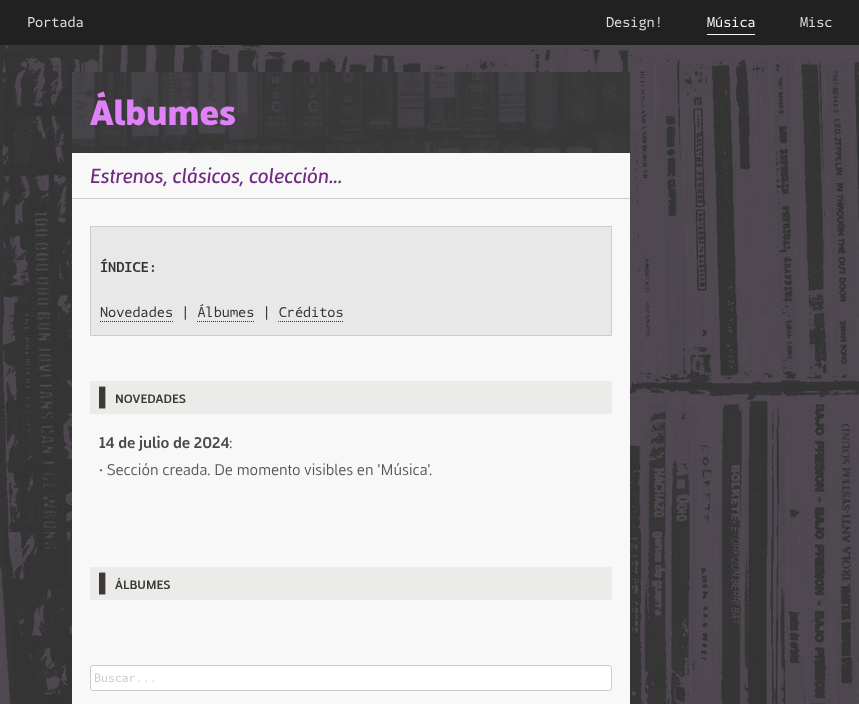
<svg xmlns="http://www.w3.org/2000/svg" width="859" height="704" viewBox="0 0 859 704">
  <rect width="100%" height="100%" fill="#212121"/>
  <path d="M707 34h48v1H707z" fill="#f8f8f8"/>
  <image x="0" y="45" width="859" height="659" href="img/1.png"/>
  <image x="72" y="72" width="558" height="81" href="img/2.png"/>
  <path d="M72 153h558v551H72z" fill="#f8f8f8"/>
  <path d="M72 198h558v1H72z" fill="#ccc"/>
  <path d="M90.5 226.5h521v109H90.5z" fill="#e8e8e9" stroke="#ccc"/>
  <path d="M100 321.5H173" fill="none" stroke="#353535" stroke-dasharray="1 1"/>
  <path d="M197 321.5H254" fill="none" stroke="#353535" stroke-dasharray="1 1"/>
  <path d="M278 321.5H343" fill="none" stroke="#353535" stroke-dasharray="1 1"/>
  <path d="M90 381h522v33H90z" fill="#ebebea"/>
  <path d="M90 567h522v33H90z" fill="#ebebea"/>
  <rect x="90.5" y="665.5" width="521" height="25" rx="2.5" fill="#fff" stroke="#ccc"/>
  <g font-family="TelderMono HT" font-size="14" fill="#ddd">
    <text x="27" y="27">Portada</text>
    <text x="606" y="27">Design!</text>
  </g>
  <text x="707" y="27" font-family="TelderMono HT" font-size="14" fill="#f8f8f8">Música</text>
  <text x="800" y="27" font-family="TelderMono HT" font-size="14" fill="#ddd">Misc</text>
  <text x="90" y="125" font-family="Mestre" font-size="36" font-weight="900" fill="#e181f8">Álbumes</text>
  <text x="90" y="183" font-family="Mestre" font-size="21" font-weight="500" font-style="italic" fill="#712b82">Estrenos, clásicos, colección...</text>
  <text x="100" y="272" font-family="TelderMono HT" font-size="14" font-weight="bold" fill="#353535">ÍNDICE:</text>
  <text x="100" y="317" font-family="TelderMono HT" font-size="14" fill="#353535">Novedades | Álbumes | Créditos</text>
  <text x="99" y="403" font-family="Liberation Sans" font-size="18" fill="#3d3832">▌</text>
  <text x="115" y="403" font-family="Mestre" font-size="12.5" font-weight="bold" fill="#3d3832">NOVEDADES</text>
  <text x="99" y="448" font-family="Mestre" font-size="16" font-weight="bold" fill="#494949">14 de julio de 2024</text>
  <g font-family="Mestre" font-size="16" fill="#555">
    <text x="229" y="448">:</text>
    <text x="99" y="475">· Sección creada. De momento visibles en 'Música'.</text>
  </g>
  <text x="99" y="589" font-family="Liberation Sans" font-size="18" fill="#3d3832">▌</text>
  <text x="115" y="589" font-family="Mestre" font-size="12.5" font-weight="bold" fill="#3d3832">ÁLBUMES</text>
  <text x="94" y="682" font-family="TelderMono HT" font-size="12" fill="#ccc">Buscar...</text>
</svg>
